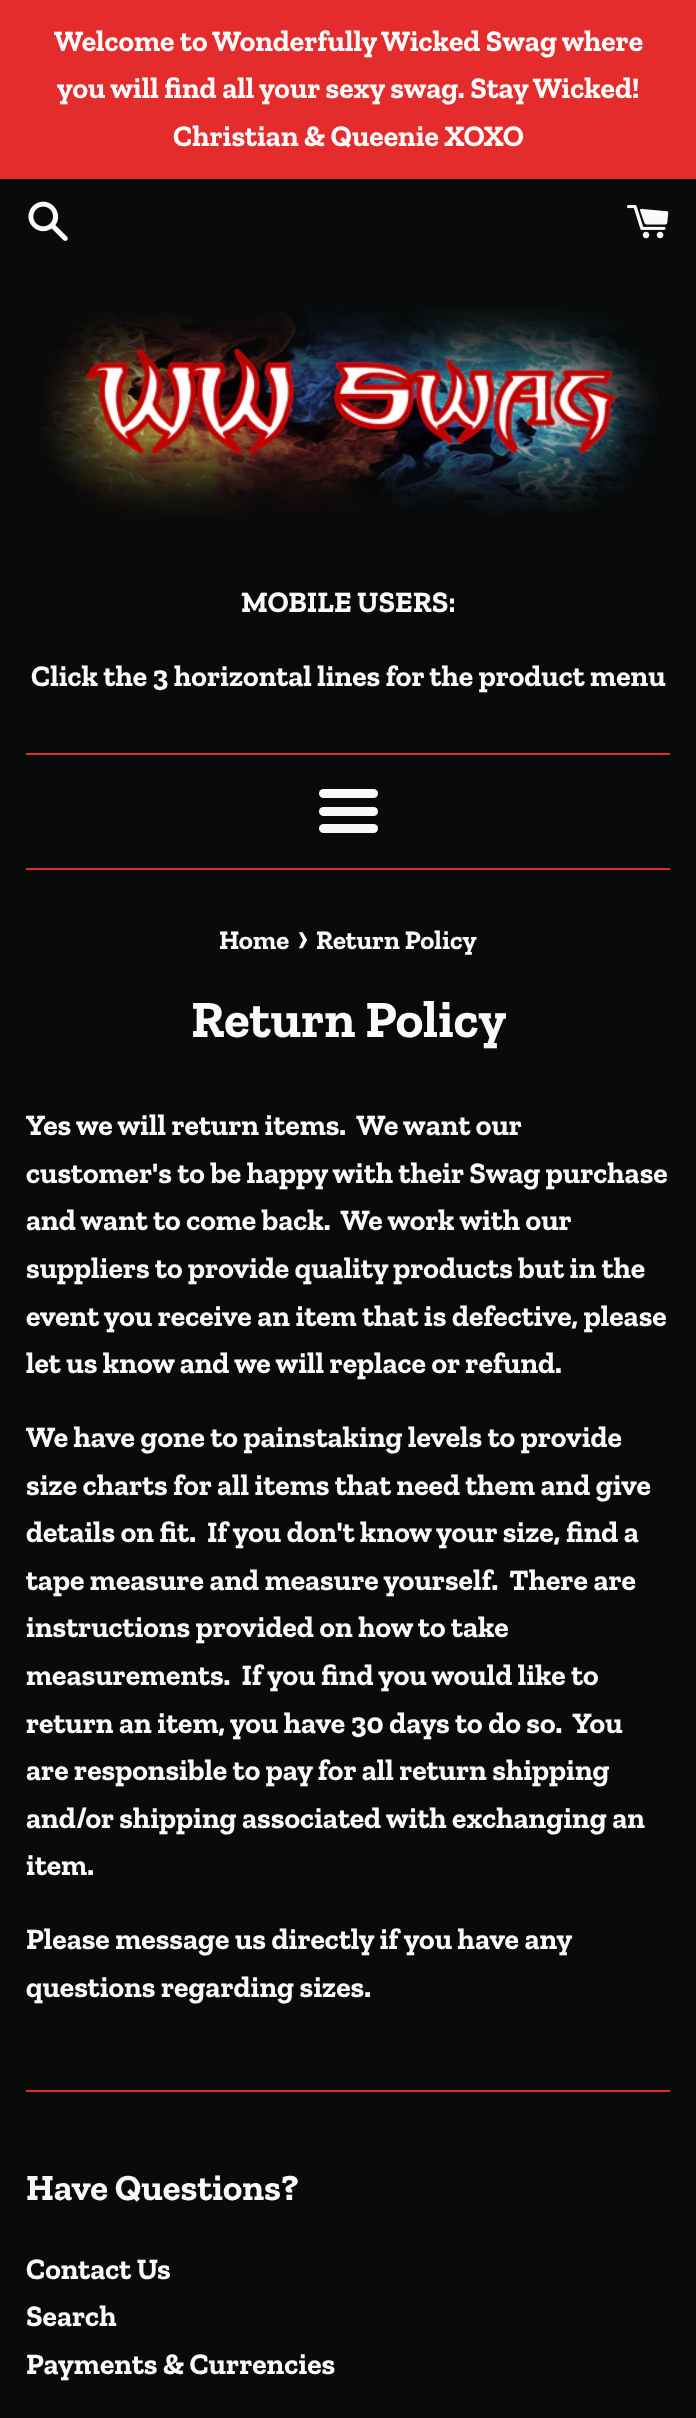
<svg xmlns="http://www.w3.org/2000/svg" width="696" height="2418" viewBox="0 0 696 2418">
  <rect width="100%" height="100%" fill="#090a0a"/>
  <path d="M0 0h696v179H0z" fill="#e32c2b"/>
  <image x="28" y="201" width="40" height="40" href="img/1.png"/>
  <image x="627" y="204" width="42" height="35" href="img/2.png"/>
  <image x="40" y="307" width="618" height="210" href="img/3.png"/>
  <path d="M26 753h644v2H26z" fill="#e32c2b"/>
  <rect x="319" y="789" width="59" height="9" rx="4.5" fill="#fafafa"/>
  <rect x="319" y="807" width="59" height="9" rx="4.5" fill="#fafafa"/>
  <rect x="319" y="824" width="59" height="9" rx="4.5" fill="#fafafa"/>
  <path d="M26 868h644v2H26z" fill="#e32c2b"/>
  <path d="M26 2090h644v2H26z" fill="#e32c2b"/>
  <g font-family="Zilla Slab" font-size="29.75" font-weight="bold" fill="#fafafa">
    <text x="54" y="51">Welcome to Wonderfully Wicked Swag where</text>
    <text x="57" y="98">you will find all your sexy swag. Stay Wicked!</text>
    <text x="173" y="146">Christian &amp; Queenie XOXO</text>
    <text x="241" y="612">MOBILE USERS:</text>
    <text x="31" y="686">Click the 3 horizontal lines for the product menu</text>
  </g>
  <text x="219" y="949" font-family="Zilla Slab" font-size="26.75" font-weight="bold" fill="#fafafa">Home</text>
  <text x="298" y="949" font-family="Zilla Slab" font-size="33" font-weight="bold" fill="#fafafa">›</text>
  <text x="316" y="949" font-family="Zilla Slab" font-size="26.75" font-weight="bold" fill="#fafafa">Return Policy</text>
  <text x="191" y="1037" font-family="Zilla Slab" font-size="52.5" font-weight="bold" fill="#fafafa">Return Policy</text>
  <g font-family="Zilla Slab" font-size="29.75" font-weight="bold" fill="#fafafa">
    <text x="26" y="1135" xml:space="preserve">Yes we will return items.  We want our</text>
    <text x="26" y="1183">customer's to be happy with their Swag purchase</text>
    <text x="26" y="1230" xml:space="preserve">and want to come back.  We work with our</text>
    <text x="26" y="1278">suppliers to provide quality products but in the</text>
    <text x="26" y="1326">event you receive an item that is defective, please</text>
    <text x="26" y="1373">let us know and we will replace or refund.</text>
    <text x="26" y="1447">We have gone to painstaking levels to provide</text>
    <text x="26" y="1495">size charts for all items that need them and give</text>
    <text x="26" y="1542" xml:space="preserve">details on fit.  If you don't know your size, find a</text>
    <text x="26" y="1590" xml:space="preserve">tape measure and measure yourself.  There are</text>
    <text x="26" y="1637">instructions provided on how to take</text>
    <text x="26" y="1685" xml:space="preserve">measurements.  If you find you would like to</text>
    <text x="26" y="1733" xml:space="preserve">return an item, you have 30 days to do so.  You</text>
    <text x="26" y="1780">are responsible to pay for all return shipping</text>
    <text x="26" y="1828">and/or shipping associated with exchanging an</text>
    <text x="26" y="1875">item.</text>
    <text x="26" y="1949">Please message us directly if you have any</text>
    <text x="26" y="1997">questions regarding sizes.</text>
  </g>
  <text x="26" y="2200" font-family="Zilla Slab" font-size="36.75" font-weight="bold" fill="#fafafa">Have Questions?</text>
  <g font-family="Zilla Slab" font-size="29.75" font-weight="bold" fill="#fafafa">
    <text x="26" y="2279">Contact Us</text>
    <text x="26" y="2326">Search</text>
    <text x="26" y="2374">Payments &amp; Currencies</text>
  </g>
</svg>
